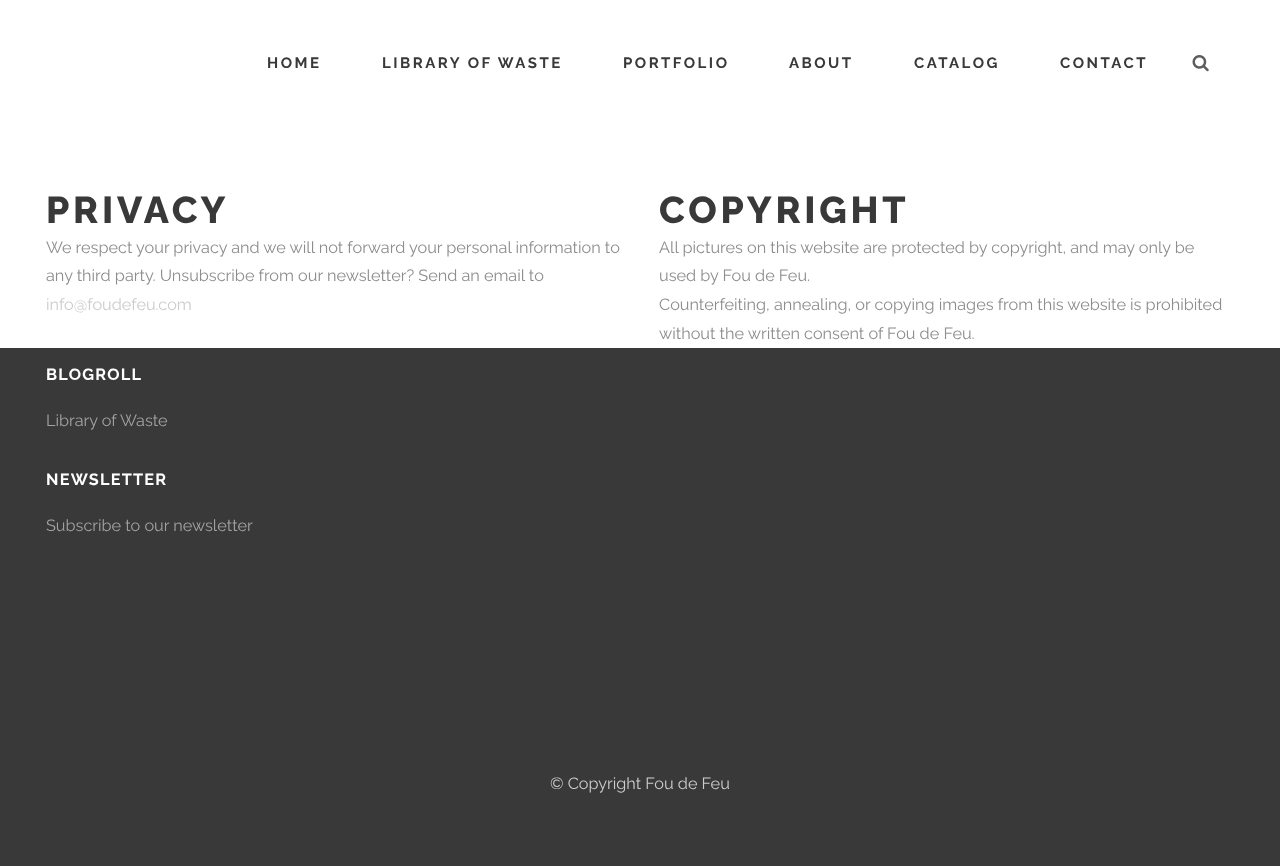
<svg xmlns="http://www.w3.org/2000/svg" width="1280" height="866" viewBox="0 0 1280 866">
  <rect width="100%" height="100%" fill="#393939"/>
  <path d="M0 0h1280v348H0z" fill="#fff"/>
  <image x="1192" y="55" width="17" height="17" href="img/1.png"/>
  <g font-family="Raleway" font-size="15" font-weight="bold" letter-spacing="2.5" fill="#393939">
    <text x="267" y="68">HOME</text>
    <text x="382" y="68">LIBRARY OF WASTE</text>
    <text x="623" y="68">PORTFOLIO</text>
    <text x="789" y="68">ABOUT</text>
    <text x="914" y="68">CATALOG</text>
    <text x="1060" y="68">CONTACT</text>
  </g>
  <text x="46" y="223" font-family="Raleway" font-size="37.5" font-weight="800" letter-spacing="3.75" fill="#393939">PRIVACY</text>
  <g font-family="Raleway" font-size="16.25" fill="#8d8d8d">
    <text x="46" y="253">We respect your privacy and we will not forward your personal information to</text>
    <text x="46" y="281">any third party. Unsubscribe from our newsletter? Send an email to</text>
  </g>
  <text x="46" y="310" font-family="Raleway" font-size="16.25" fill="#ccc">info@foudefeu.com</text>
  <text x="659" y="223" font-family="Raleway" font-size="37.5" font-weight="800" letter-spacing="3.75" fill="#393939">COPYRIGHT</text>
  <g font-family="Raleway" font-size="16.25" fill="#8d8d8d">
    <text x="659" y="253">All pictures on this website are protected by copyright, and may only be</text>
    <text x="659" y="281">used by Fou de Feu.</text>
    <text x="659" y="310">Counterfeiting, annealing, or copying images from this website is prohibited</text>
    <text x="659" y="339">without the written consent of Fou de Feu.</text>
  </g>
  <text x="46" y="380" font-family="Raleway" font-size="16.25" font-weight="bold" letter-spacing="1.25" fill="#fff">BLOGROLL</text>
  <text x="46" y="426" font-family="Raleway" font-size="16.25" fill="#a2a2a2">Library of Waste</text>
  <text x="46" y="485" font-family="Raleway" font-size="16.25" font-weight="bold" letter-spacing="1.25" fill="#fff">NEWSLETTER</text>
  <text x="46" y="531" font-family="Raleway" font-size="16.25" fill="#a2a2a2">Subscribe to our newsletter</text>
  <text x="550" y="789" font-family="Raleway" font-size="16.25" fill="#ccc">© Copyright Fou de Feu</text>
</svg>
